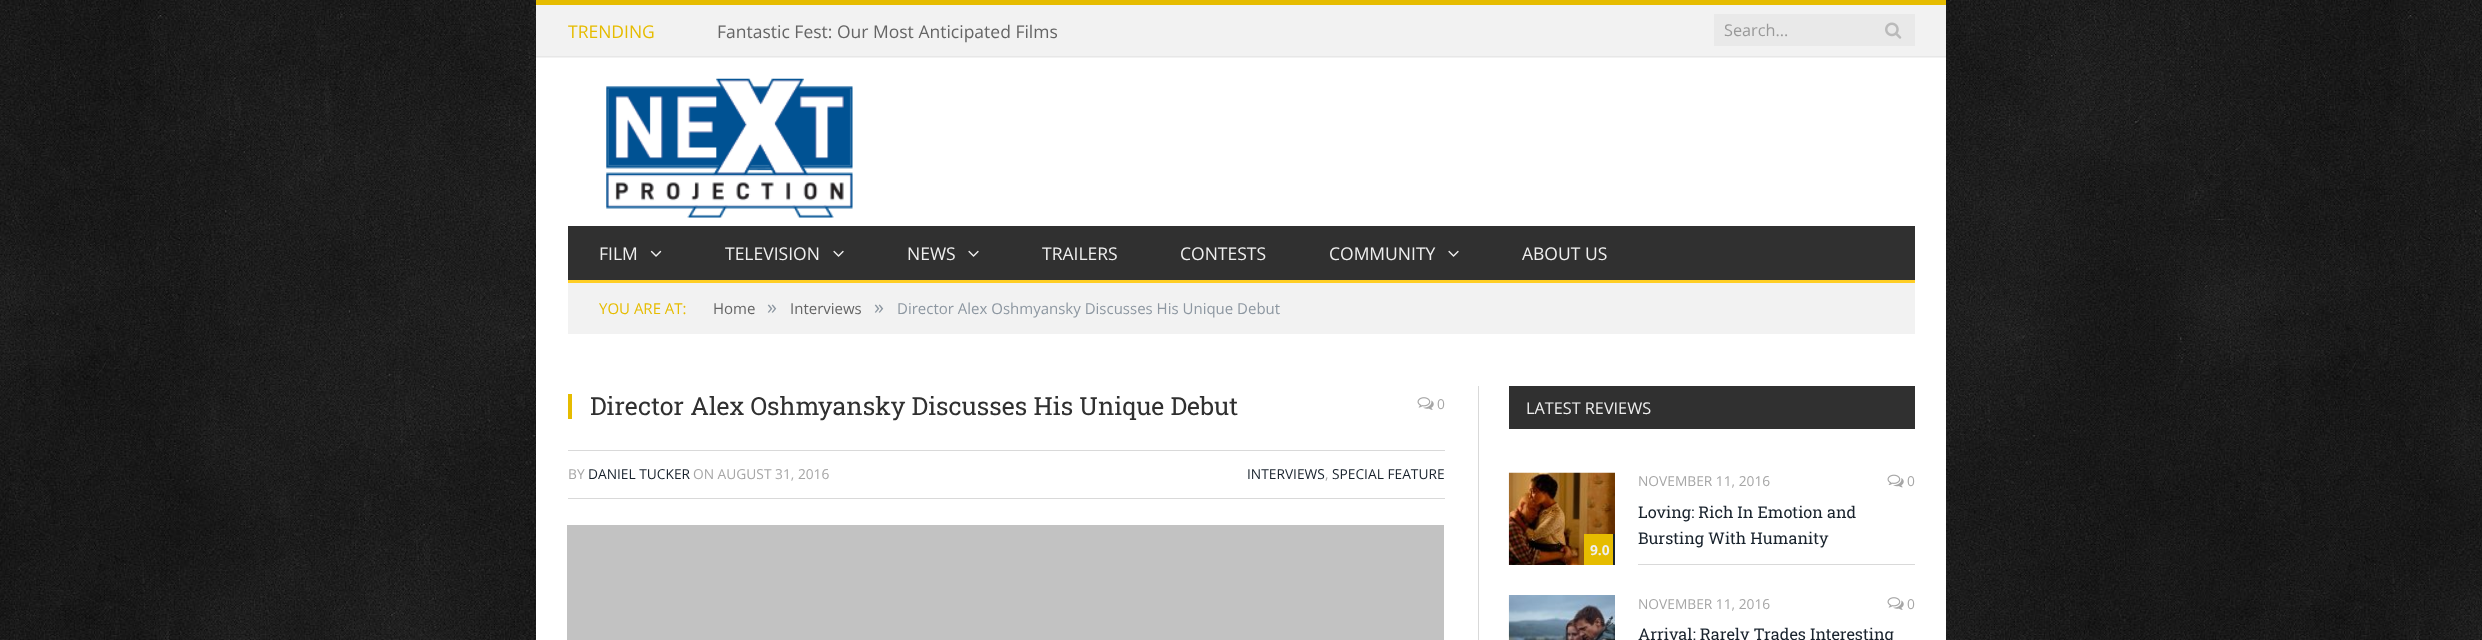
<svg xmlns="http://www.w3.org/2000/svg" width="2482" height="640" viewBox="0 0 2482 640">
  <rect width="100%" height="100%" fill="#fff"/>
  <image x="0" y="0" width="2482" height="640" href="img/1.png"/>
  <path d="M536 58h1410v582H536z" fill="#fff"/>
  <path d="M536 5h1410v53H536z" fill="#f2f2f2"/>
  <path d="M536 0h1410v5H536z" fill="#e6bc00"/>
  <path d="M536 56h1410v1H536z" fill="#e7e7e7"/>
  <path d="M1714 14h201v32H1714z" fill="#e9e9e9"/>
  <image x="1885" y="22" width="17" height="17" href="img/2.png"/>
  <image x="606" y="78" width="247" height="140" href="img/3.png"/>
  <path d="M568 226h1347v54H568z" fill="#303030"/>
  <path d="M568 280h1347v3H568z" fill="#ffce26"/>
  <image x="650" y="250" width="12" height="7" href="img/4.png"/>
  <image x="833" y="250" width="11" height="7" href="img/5.png"/>
  <image x="968" y="250" width="11" height="7" href="img/5.png"/>
  <image x="1448" y="250" width="11" height="7" href="img/5.png"/>
  <path d="M568 283h1347v51H568z" fill="#f2f2f2"/>
  <path d="M568 394h4v25H568z" fill="#e6bc00"/>
  <image x="1417" y="397" width="17" height="13" href="img/6.png"/>
  <path d="M568 450h877v1H568z" fill="#d9d9d9"/>
  <path d="M568 498h877v1H568z" fill="#d9d9d9"/>
  <path d="M567 525h877v115H567z" fill="#c2c2c2"/>
  <path d="M1478 386h1v254H1478z" fill="#d9d9d9"/>
  <path d="M1509 386h406v43H1509z" fill="#303030"/>
  <path d="M1638 564h277v1H1638z" fill="#d9d9d9"/>
  <image x="1887" y="474" width="17" height="14" href="img/7.png"/>
  <image x="1508" y="472" width="107" height="93" href="img/8.png"/>
  <path d="M1613 534h2v31H1613z" fill="#19232d"/>
  <path d="M1584 534h29v31H1584z" fill="#e6bc00"/>
  <image x="1508" y="595" width="107" height="45" href="img/9.png"/>
  <image x="1887" y="597" width="17" height="13" href="img/6.png"/>
  <text x="568" y="38" font-family="Open Sans" font-size="17.5" fill="#e6bc00">TRENDING</text>
  <text x="717" y="38" font-family="Open Sans" font-size="17.5" fill="#656565">Fantastic Fest: Our Most Anticipated Films</text>
  <text x="1724" y="36" font-family="Open Sans" font-size="16.25" fill="#999">Search...</text>
  <g font-family="Open Sans" font-size="17.5" fill="#efefef">
    <text x="599" y="260">FILM</text>
    <text x="725" y="260">TELEVISION</text>
    <text x="907" y="260">NEWS</text>
    <text x="1042" y="260">TRAILERS</text>
    <text x="1180" y="260">CONTESTS</text>
    <text x="1329" y="260">COMMUNITY</text>
    <text x="1522" y="260">ABOUT US</text>
  </g>
  <text x="599" y="314" font-family="Open Sans" font-size="15" fill="#e6bc00">YOU ARE AT:</text>
  <text x="713" y="314" font-family="Open Sans" font-size="15" fill="#656565">Home</text>
  <text x="767" y="314" font-family="Open Sans" font-size="20" fill="#8d97a1">»</text>
  <text x="790" y="314" font-family="Open Sans" font-size="15" fill="#656565">Interviews</text>
  <text x="874" y="314" font-family="Open Sans" font-size="20" fill="#8d97a1">»</text>
  <text x="897" y="314" font-family="Open Sans" font-size="15" fill="#8d97a1">Director Alex Oshmyansky Discusses His Unique Debut</text>
  <text x="590" y="415" font-family="Roboto Slab" font-size="25" fill="#303030">Director Alex Oshmyansky Discusses His Unique Debut</text>
  <g font-family="Open Sans" font-size="13.75" fill="#a6a6a6">
    <text x="1437" y="409">0</text>
    <text x="568" y="479">BY</text>
  </g>
  <text x="588" y="479" font-family="Open Sans" font-size="13.75" fill="#19232d">DANIEL TUCKER</text>
  <text x="693" y="479" font-family="Open Sans" font-size="13.75" fill="#a6a6a6">ON AUGUST 31, 2016</text>
  <text x="1247" y="479" font-family="Open Sans" font-size="13.75" fill="#19232d">INTERVIEWS</text>
  <text x="1325" y="479" font-family="Open Sans" font-size="13.75" fill="#a6a6a6">,</text>
  <text x="1332" y="479" font-family="Open Sans" font-size="13.75" fill="#19232d">SPECIAL FEATURE</text>
  <text x="1526" y="414" font-family="Open Sans" font-size="16.25" fill="#efefef">LATEST REVIEWS</text>
  <g font-family="Open Sans" font-size="13.75" fill="#a6a6a6">
    <text x="1638" y="486">NOVEMBER 11, 2016</text>
    <text x="1907" y="486">0</text>
  </g>
  <g font-family="Roboto Slab" font-size="16.25" fill="#19232d">
    <text x="1638" y="518">Loving: Rich In Emotion and</text>
    <text x="1638" y="544">Bursting With Humanity</text>
  </g>
  <text x="1590" y="555" font-family="Open Sans" font-size="13.75" font-weight="bold" fill="#efefef">9.0</text>
  <g font-family="Open Sans" font-size="13.75" fill="#a6a6a6">
    <text x="1638" y="609">NOVEMBER 11, 2016</text>
    <text x="1907" y="609">0</text>
  </g>
  <text x="1638" y="640" font-family="Roboto Slab" font-size="16.25" fill="#19232d">Arrival: Rarely Trades Interesting</text>
</svg>
